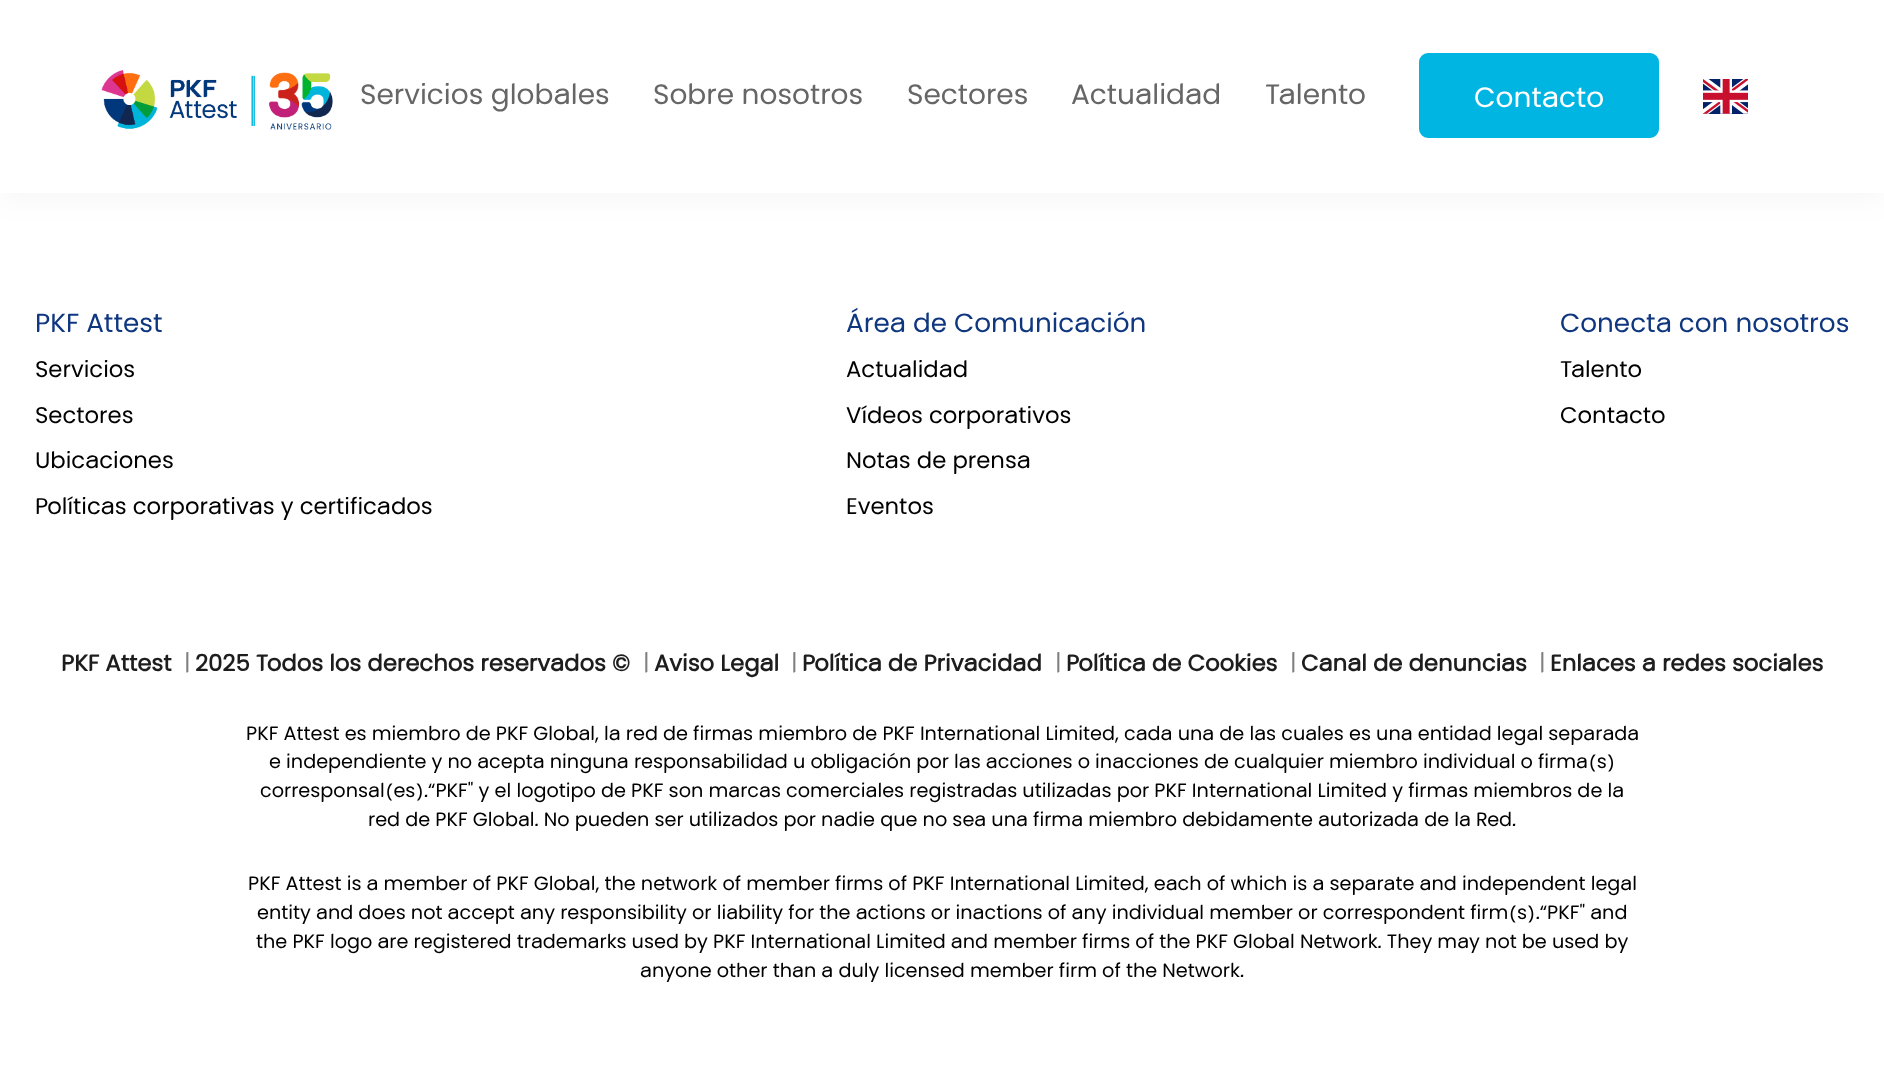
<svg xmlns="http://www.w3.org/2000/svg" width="1884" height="1073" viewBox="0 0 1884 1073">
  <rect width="100%" height="100%" fill="#fff"/>
  <path d="M0 0h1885v193H0z" fill="#0000000d" filter="blur(17.5px)"/>
  <path d="M0 0h1884v193H0z" fill="#fff"/>
  <image x="101" y="70" width="232" height="60" href="img/1.png"/>
  <rect x="1420" y="54" width="238" height="83" rx="8" fill="#00b5e2" stroke="#00b5e2" stroke-width="2"/>
  <image x="1703" y="79" width="45" height="35" href="img/2.png"/>
  <g font-family="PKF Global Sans" font-size="28" fill="#666">
    <text x="360" y="104">Servicios globales</text>
    <text x="653" y="104">Sobre nosotros</text>
    <text x="907" y="104">Sectores</text>
    <text x="1071" y="104">Actualidad</text>
    <text x="1265" y="104">Talento</text>
  </g>
  <text x="1474" y="107" font-family="PKF Global Sans" font-size="28" fill="#fff">Contacto</text>
  <text x="35" y="332" font-family="PKF Global Sans" font-size="26.25" fill="#0f3780">PKF Attest</text>
  <g font-family="PKF Global Sans" font-size="22.75" fill="#000">
    <text x="35" y="377">Servicios</text>
    <text x="35" y="423">Sectores</text>
    <text x="35" y="468">Ubicaciones</text>
    <text x="35" y="514">Políticas corporativas y certificados</text>
  </g>
  <text x="846" y="332" font-family="PKF Global Sans" font-size="26.25" fill="#0f3780">Área de Comunicación</text>
  <g font-family="PKF Global Sans" font-size="22.75" fill="#000">
    <text x="846" y="377">Actualidad</text>
    <text x="846" y="423">Vídeos corporativos</text>
    <text x="846" y="468">Notas de prensa</text>
    <text x="846" y="514">Eventos</text>
  </g>
  <text x="1560" y="332" font-family="PKF Global Sans" font-size="26.25" fill="#0f3780">Conecta con nosotros</text>
  <g font-family="PKF Global Sans" font-size="22.75" fill="#000">
    <text x="1560" y="377">Talento</text>
    <text x="1560" y="423">Contacto</text>
  </g>
  <text x="61" y="671" font-family="PKF Global Sans" font-size="22.75" font-weight="bold" fill="#1d1d1d">PKF Attest</text>
  <text x="184" y="670" font-family="PKF Global Sans" font-size="22.75" fill="#808080">|</text>
  <text x="195" y="671" font-family="PKF Global Sans" font-size="22.75" font-weight="bold" fill="#1d1d1d">2025 Todos los derechos reservados ©</text>
  <text x="643" y="670" font-family="PKF Global Sans" font-size="22.75" fill="#808080">|</text>
  <text x="654" y="671" font-family="PKF Global Sans" font-size="22.75" font-weight="bold" fill="#1d1d1d">Aviso Legal</text>
  <text x="791" y="670" font-family="PKF Global Sans" font-size="22.75" fill="#808080">|</text>
  <text x="802" y="671" font-family="PKF Global Sans" font-size="22.75" font-weight="bold" fill="#1d1d1d">Política de Privacidad</text>
  <text x="1055" y="670" font-family="PKF Global Sans" font-size="22.75" fill="#808080">|</text>
  <text x="1066" y="671" font-family="PKF Global Sans" font-size="22.75" font-weight="bold" fill="#1d1d1d">Política de Cookies</text>
  <text x="1290" y="670" font-family="PKF Global Sans" font-size="22.75" fill="#808080">|</text>
  <text x="1301" y="671" font-family="PKF Global Sans" font-size="22.75" font-weight="bold" fill="#1d1d1d">Canal de denuncias</text>
  <text x="1539" y="670" font-family="PKF Global Sans" font-size="22.75" fill="#808080">|</text>
  <text x="1550" y="671" font-family="PKF Global Sans" font-size="22.75" font-weight="bold" fill="#1d1d1d">Enlaces a redes sociales</text>
  <g font-family="PKF Global Sans" font-size="19.25" fill="#000">
    <text x="246" y="740">PKF Attest es miembro de PKF Global, la red de firmas miembro de PKF International Limited, cada una de las cuales es una entidad legal separada</text>
    <text x="269" y="768">e independiente y no acepta ninguna responsabilidad u obligación por las acciones o inacciones de cualquier miembro individual o firma(s)</text>
    <text x="260" y="797">corresponsal(es).“PKF" y el logotipo de PKF son marcas comerciales registradas utilizadas por PKF International Limited y firmas miembros de la</text>
    <text x="368" y="826">red de PKF Global. No pueden ser utilizados por nadie que no sea una firma miembro debidamente autorizada de la Red.</text>
    <text x="248" y="890">PKF Attest is a member of PKF Global, the network of member firms of PKF International Limited, each of which is a separate and independent legal</text>
    <text x="257" y="919">entity and does not accept any responsibility or liability for the actions or inactions of any individual member or correspondent firm(s).“PKF" and</text>
    <text x="256" y="948">the PKF logo are registered trademarks used by PKF International Limited and member firms of the PKF Global Network. They may not be used by</text>
    <text x="640" y="977">anyone other than a duly licensed member firm of the Network.</text>
  </g>
</svg>
